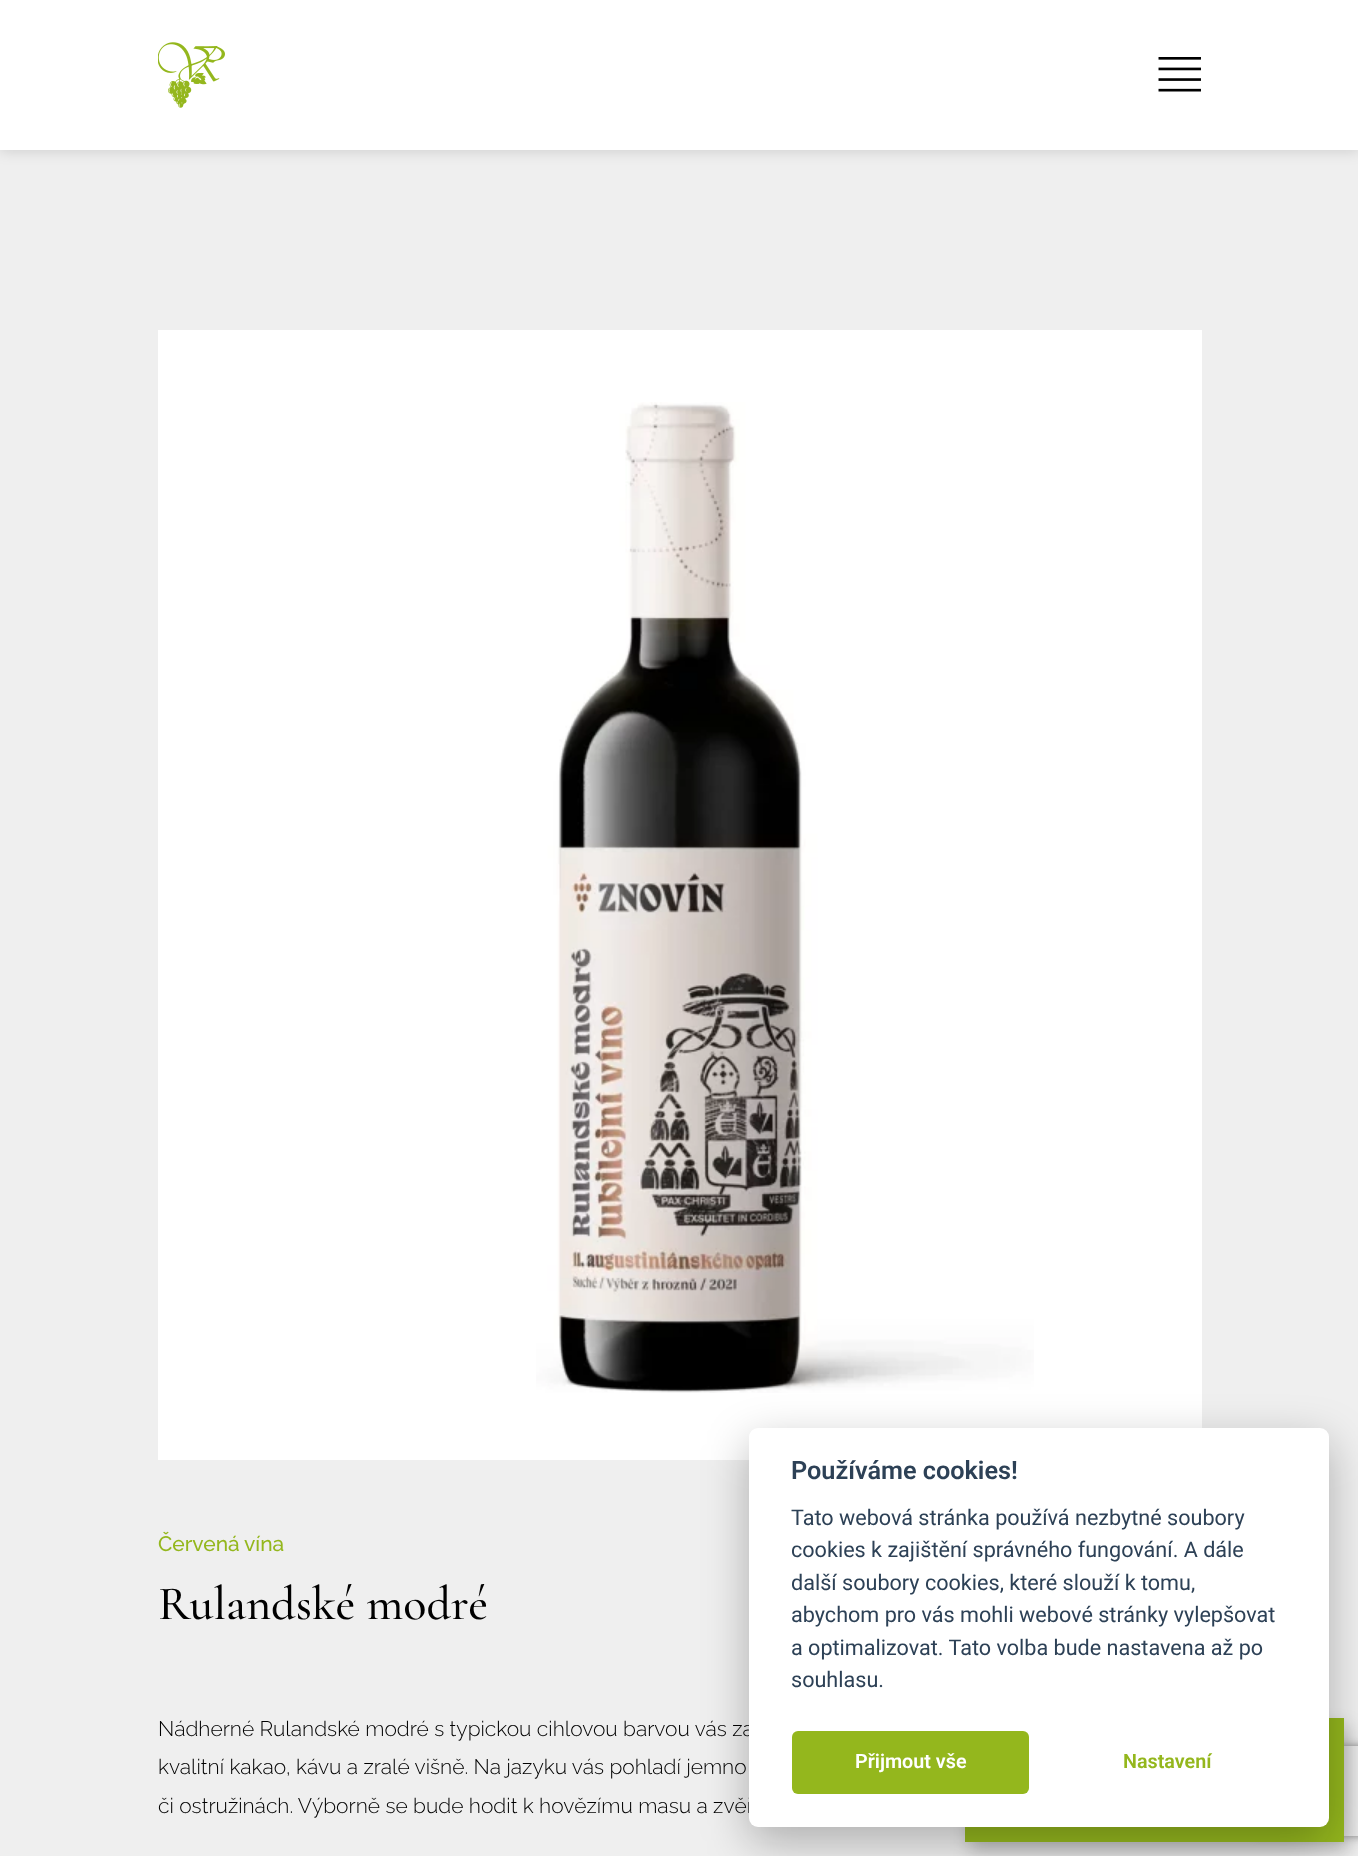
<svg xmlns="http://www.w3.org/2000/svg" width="1358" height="1856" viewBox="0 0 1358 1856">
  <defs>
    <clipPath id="clip1"><path d="M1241 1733H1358V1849H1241ZM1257 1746H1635C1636.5 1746 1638 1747.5 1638 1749V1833C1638 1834.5 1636.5 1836 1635 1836H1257C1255.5 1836 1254 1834.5 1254 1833V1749C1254 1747.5 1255.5 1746 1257 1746Z" clip-rule="evenodd"/></clipPath>
  </defs>
  <rect width="100%" height="100%" fill="#efefef"/>
  <path d="M0 0h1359v150H0z" fill="#00000029" filter="blur(7.5px)"/>
  <path d="M0 0h1358v150H0z" fill="#fff"/>
  <image x="158" y="42" width="67" height="66" href="img/1.png"/>
  <image x="1158" y="57" width="43" height="35" href="img/2.png"/>
  <path d="M158 330h1044v1130H158z" fill="#fff"/>
  <image x="536" y="402" width="498" height="991" href="img/3.png"/>
  <path d="M969 1727h380v124H969z" fill="#00000038" filter="blur(9px)"/>
  <g clip-path="url(#clip1)">
    <rect x="1254" y="1746" width="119" height="90" rx="3" fill="#808080" filter="blur(4px)"/>
  </g>
  <path d="M965 1718h379v124H965z" fill="#94b71d"/>
  <rect x="749" y="1443" width="580" height="399" rx="9" fill="#02020347" filter="blur(22.5px)"/>
  <text x="158" y="1551" word-spacing="-1" font-family="Raleway" font-size="21" font-weight="500" fill="#94b71d">Červená vína</text>
  <text x="158" y="1619" font-family="Cormorant Garamond" font-size="48" font-weight="500" fill="#000">Rulandské modré</text>
  <g font-family="Raleway" font-size="21" font-weight="300" fill="#000">
    <text x="158" y="1736">Nádherné Rulandské modré s typickou cihlovou barvou vás za</text>
    <text x="158" y="1774">kvalitní kakao, kávu a zralé višně. Na jazyku vás pohladí jemno</text>
    <text x="158" y="1813">či ostružinách. Výborně se bude hodit k hovězímu masu a zvěř</text>
  </g>
  <rect x="749" y="1428" width="580" height="399" rx="9" fill="#fff"/>
  <text x="791" y="1479" font-family="Roboto" font-size="25.25" font-weight="600" fill="#2d4156">Používáme cookies!</text>
  <g font-family="Roboto" font-size="21.6" fill="#2d4156">
    <text x="791" y="1525">Tato webová stránka používá nezbytné soubory</text>
    <text x="791" y="1557">cookies k zajištění správného fungování. A dále</text>
    <text x="791" y="1590">další soubory cookies, které slouží k tomu,</text>
    <text x="791" y="1622">abychom pro vás mohli webové stránky vylepšovat</text>
    <text x="791" y="1655">a optimalizovat. Tato volba bude nastavena až po</text>
    <text x="791" y="1687">souhlasu.</text>
  </g>
  <rect x="792" y="1731" width="237" height="63" rx="6" fill="#94b71d"/>
  <text x="855" y="1768" font-family="Roboto" font-size="19.75" font-weight="600" fill="#fff">Přijmout vše</text>
  <text x="1123" y="1768" font-family="Roboto" font-size="19.75" font-weight="600" fill="#94b71d">Nastavení</text>
</svg>
